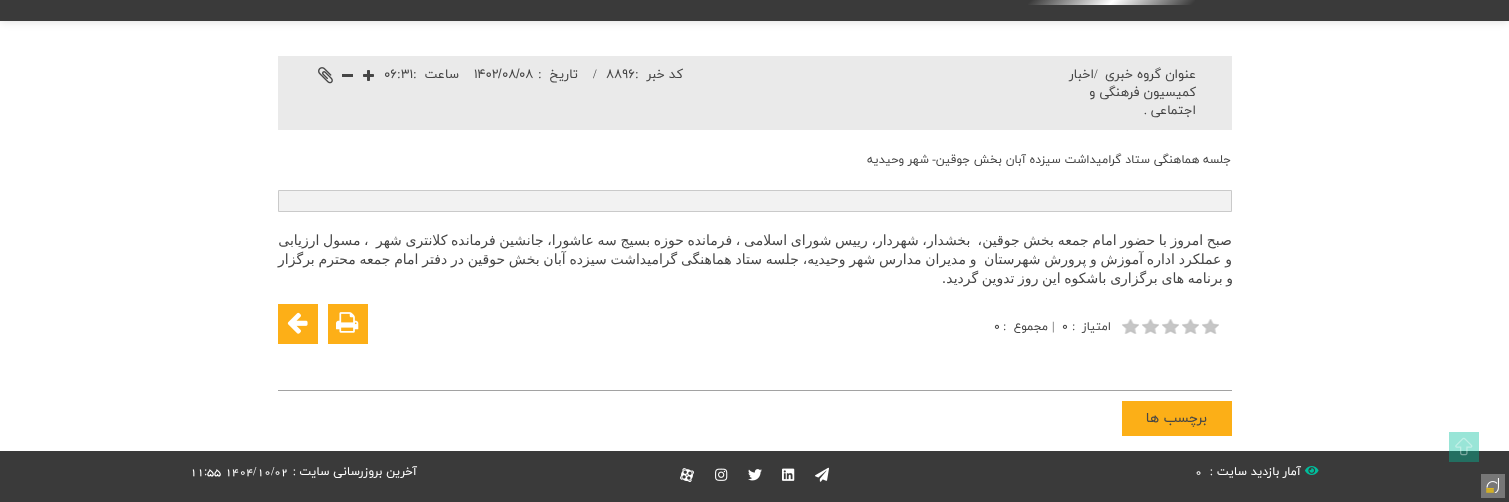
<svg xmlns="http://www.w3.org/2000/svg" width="1509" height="502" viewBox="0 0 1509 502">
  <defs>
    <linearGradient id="g1" gradientUnits="userSpaceOnUse" x1="1258" y1="63" x2="1051" y2="-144"><stop offset="0.3" stop-color="#3a3a3a"/><stop offset="0.5" stop-color="#fff"/><stop offset="0.7" stop-color="#3a3a3a"/></linearGradient>
  </defs>
  <rect width="100%" height="100%" fill="#fff"/>
  <path d="M1449 432h30v19H1449z" fill="#99e5d7"/>
  <path d="M0 -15h1509v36H0z" fill="#00000026" filter="blur(5px)"/>
  <path d="M0 0h1509v21H0z" fill="#3a3a3a"/>
  <path d="M1028 0h167v5H1028z" fill="url(#g1)"/>
  <path d="M278 56h954v74H278z" fill="#eaeaea"/>
  <image x="363" y="70" width="11" height="11" href="img/1.png"/>
  <path d="M342 74h11v3H342z" fill="#464646"/>
  <image x="318" y="67" width="15" height="17" href="img/2.png"/>
  <path d="M278.5 190.5h953v21H278.5z" fill="#f2f2f2" stroke="#cacaca"/>
  <image x="1202" y="319" width="17" height="15" href="img/3.png"/>
  <image x="1182" y="319" width="17" height="15" href="img/3.png"/>
  <image x="1162" y="319" width="17" height="15" href="img/3.png"/>
  <image x="1142" y="319" width="17" height="15" href="img/3.png"/>
  <image x="1122" y="319" width="17" height="15" href="img/3.png"/>
  <path d="M328 304h40v40H328z" fill="#fdaf17"/>
  <image x="336" y="312" width="23" height="21" href="img/4.png"/>
  <path d="M278 304h40v40H278z" fill="#fdaf17"/>
  <image x="287" y="312" width="21" height="22" href="img/5.png"/>
  <path d="M278 390h954v1H278z" fill="#a2a2a2"/>
  <path d="M1122 401h110v35H1122z" fill="#fcaf17"/>
  <path d="M0 451h1509v51H0z" fill="#3a3a3a"/>
  <path d="M1449 451h30v11H1449z" fill="#236f61"/>
  <image x="1455" y="437" width="18" height="19" href="img/6.png"/>
  <image x="1305" y="466" width="14" height="9" href="img/7.png"/>
  <image x="815" y="467" width="14" height="15" href="img/8.png"/>
  <image x="782" y="468" width="13" height="13" href="img/9.png"/>
  <image x="748" y="469" width="14" height="12" href="img/10.png"/>
  <image x="715" y="468" width="13" height="13" href="img/11.png"/>
  <image x="680" y="468" width="14" height="15" href="img/12.png"/>
  <path d="M1481 474h24v24H1481z" fill="#777"/>
  <image x="1486" y="478" width="13" height="15" href="img/13.png"/>
  <text x="1196" y="78" font-family="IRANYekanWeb" font-size="13" direction="rtl" fill="#464646">عنوان گروه خبري</text>
  <text x="1094" y="78" font-family="Liberation Serif" font-size="13" fill="#464646">/</text>
  <g font-family="IRANYekanWeb" font-size="13" direction="rtl" fill="#464646">
    <text x="1094" y="78">اخبار</text>
    <text x="1196" y="96">کمیسیون فرهنگی و</text>
    <text x="1196" y="114">اجتماعی</text>
  </g>
  <text x="1147" y="114" font-family="Liberation Serif" font-size="13" direction="rtl" fill="#464646">.</text>
  <text x="683" y="78" font-family="IRANYekanWeb" font-size="13" direction="rtl" fill="#464646">کد خبر</text>
  <text x="635" y="78" font-family="Liberation Serif" font-size="13" fill="#464646">:</text>
  <text x="606" y="78" font-family="IRANYekanWeb" font-size="13" fill="#464646">۸۸۹۶</text>
  <text x="593" y="78" font-family="Liberation Serif" font-size="13" fill="#464646">/</text>
  <text x="578" y="78" font-family="IRANYekanWeb" font-size="13" direction="rtl" fill="#464646">تاريخ</text>
  <text x="538" y="78" font-family="Liberation Serif" font-size="13" fill="#464646">:</text>
  <g font-family="IRANYekanWeb" font-size="13" fill="#464646">
    <text x="519" y="78">۰۸</text>
    <text x="502" y="78">۰۸</text>
  </g>
  <g font-family="Liberation Sans" font-size="13" fill="#464646">
    <text x="516" y="78">/</text>
    <text x="498" y="78">/</text>
  </g>
  <text x="474" y="78" font-family="IRANYekanWeb" font-size="13" fill="#464646">۱۴۰۲</text>
  <text x="459" y="78" font-family="IRANYekanWeb" font-size="13" direction="rtl" fill="#464646">ساعت</text>
  <text x="413" y="78" font-family="Liberation Serif" font-size="13" fill="#464646">:</text>
  <text x="401" y="78" font-family="IRANYekanWeb" font-size="13" fill="#464646">۳۱</text>
  <text x="397" y="78" font-family="Liberation Serif" font-size="13" fill="#464646">:</text>
  <text x="384" y="78" font-family="IRANYekanWeb" font-size="13" fill="#464646">۰۶</text>
  <text x="1231" y="163" font-family="IRANYekanWeb" font-size="12" direction="rtl" fill="#464646">جلسه هماهنگی ستاد گرامیداشت سیزده آبان بخش جوقین</text>
  <text x="936" y="163" font-family="Liberation Serif" font-size="12" direction="rtl" fill="#464646">-</text>
  <text x="929" y="163" font-family="IRANYekanWeb" font-size="12" direction="rtl" fill="#464646">شهر وحیدیه</text>
  <g font-family="DejaVu Sans" font-size="14" direction="rtl" fill="#464646">
    <text x="1232" y="245" word-spacing="-0.8" xml:space="preserve">صبح امروز با حضور امام جمعه بخش جوقین،  بخشدار، شهردار، رییس شورای اسلامی ، فرمانده حوزه بسیج سه عاشورا، جانشین فرمانده کلانتری شهر  ، مسول ارزیابی</text>
    <text x="1232" y="264" word-spacing="-0.7" xml:space="preserve">و عملکرد اداره آموزش و پرورش شهرستان  و مدیران مدارس شهر وحیدیه، جلسه ستاد هماهنگی گرامیداشت سیزده آبان بخش حوقین در دفتر امام جمعه محترم برگزار</text>
    <text x="1233" y="283" word-spacing="-0.75">و برنامه های برگزاری باشکوه این روز تدوین گردید.</text>
  </g>
  <text x="1111" y="330" font-family="IRANYekanWeb" font-size="12" direction="rtl" fill="#464646">امتیاز</text>
  <text x="1072" y="330" font-family="Liberation Serif" font-size="12" fill="#464646">:</text>
  <text x="1062" y="330" font-family="IRANYekanWeb" font-size="12" fill="#464646">۰</text>
  <text x="1052" y="330" font-family="Liberation Serif" font-size="12" fill="#464646">|</text>
  <text x="1048" y="330" font-family="IRANYekanWeb" font-size="12" direction="rtl" fill="#464646">مجموع</text>
  <text x="1003" y="330" font-family="Liberation Serif" font-size="12" fill="#464646">:</text>
  <text x="994" y="330" font-family="IRANYekanWeb" font-size="12" fill="#464646">۰</text>
  <text x="1207" y="422" font-family="IRANYekanWeb" font-size="14" direction="rtl" fill="#464646">برچسب ها</text>
  <text x="1301" y="475" font-family="IRANYekanWeb" font-size="12" direction="rtl" fill="#fff">آمار بازدید سایت</text>
  <text x="1213" y="475" font-family="Liberation Serif" font-size="12" direction="rtl" fill="#fff">:</text>
  <text x="1195" y="475" font-family="IRANYekanWeb" font-size="12" fill="#fff">0</text>
  <text x="417" y="475" font-family="IRANYekanWeb" font-size="12" direction="rtl" fill="#fff">آخرین بروزرسانی سایت</text>
  <text x="296" y="475" font-family="Liberation Serif" font-size="12" direction="rtl" fill="#fff">:</text>
  <text x="274" y="475" font-family="IRANYekanWeb" font-size="12" fill="#fff">02</text>
  <text x="271" y="475" font-family="Liberation Serif" font-size="12" fill="#fff">/</text>
  <text x="257" y="475" font-family="IRANYekanWeb" font-size="12" fill="#fff">10</text>
  <text x="253" y="475" font-family="Liberation Serif" font-size="12" fill="#fff">/</text>
  <text x="207" y="475" font-family="IRANYekanWeb" font-size="12" fill="#fff">55 1404</text>
  <text x="204" y="475" font-family="Liberation Serif" font-size="12" fill="#fff">:</text>
  <text x="190" y="475" font-family="IRANYekanWeb" font-size="12" fill="#fff">11</text>
</svg>
